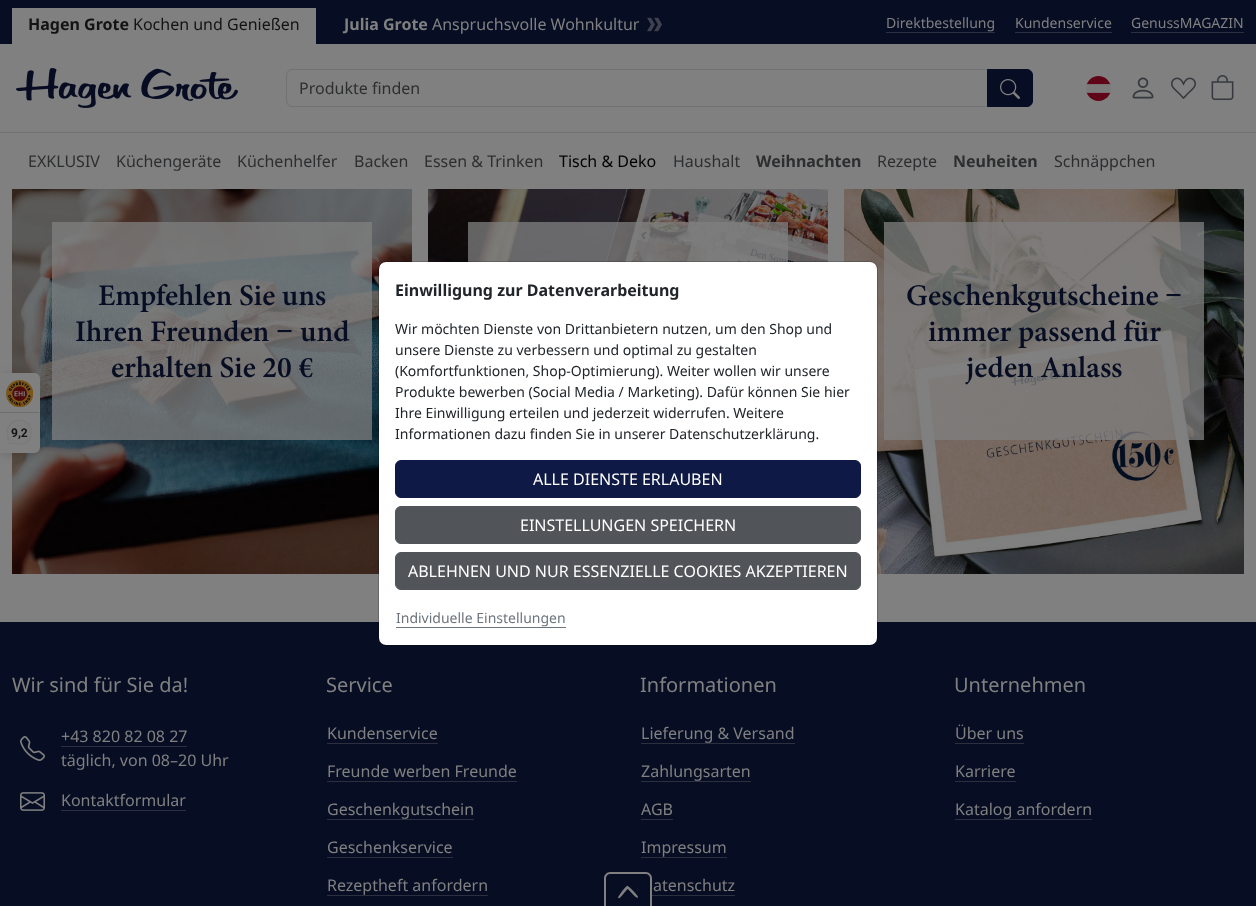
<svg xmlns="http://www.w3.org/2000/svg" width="1256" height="906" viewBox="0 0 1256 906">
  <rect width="100%" height="100%" fill="#808080"/>
  <path d="M0 0h1256v44H0z" fill="#070d23"/>
  <path d="M12 8h304v36H12z" fill="#808080"/>
  <image x="647" y="17" width="15" height="15" href="img/1.png"/>
  <path d="M886 32h109v1H886z" fill="#2b2f3f"/>
  <path d="M1015 32h97v1H1015z" fill="#2b2f3f"/>
  <path d="M1131 32h113v1H1131z" fill="#2b2f3f"/>
  <image x="16" y="68" width="222" height="40" href="img/2.png"/>
  <path d="M292 69.5H987.5V106.5H292C289 106.5 286.5 104 286.5 101V75C286.5 72 289 69.5 292 69.5Z" fill="none" stroke="#6f7173"/>
  <path d="M987.5 69.5H1027C1030 69.5 1032.5 72 1032.5 75V101C1032.5 104 1030 106.5 1027 106.5H987.5Z" fill="#070d23" stroke="#070d23"/>
  <image x="1000" y="79" width="20" height="20" href="img/3.png"/>
  <image x="1086" y="76" width="25" height="25" href="img/4.png"/>
  <image x="1132" y="77" width="22" height="22" href="img/5.png"/>
  <image x="1171" y="77" width="25" height="22" href="img/6.png"/>
  <image x="1211" y="75" width="23" height="25" href="img/7.png"/>
  <path d="M0 132h1256v1H0z" fill="#6f7173"/>
  <image x="428" y="189" width="400" height="73" href="img/8.png"/>
  <path d="M468 222h320v40H468z" fill="#808080bf"/>
  <image x="12" y="189" width="400" height="385" href="img/9.png"/>
  <path d="M52 222h320v218H52z" fill="#808080bf"/>
  <image x="844" y="189" width="400" height="385" href="img/10.png"/>
  <path d="M884 222h320v218H884z" fill="#808080bf"/>
  <rect y="375" width="40" height="80" rx="6" fill="#00000026" filter="blur(5px)"/>
  <path d="M0 373H34C37.5 373 40 375.5 40 379V447C40 450.5 37.5 453 34 453H0Z" fill="#808080"/>
  <image x="6" y="380" width="27" height="27" href="img/11.png"/>
  <path d="M0 412h39v1H0z" fill="#6d6d6d"/>
  <image x="6" y="419" width="26" height="26" href="img/12.png"/>
  <path d="M0 622h1256v284H0z" fill="#070d23"/>
  <rect x="379" y="262" width="498" height="383" rx="7" fill="#fff"/>
  <rect x="378.5" y="261.5" width="499" height="384" rx="7.5" fill="none" stroke="#0000002e"/>
  <rect x="395.5" y="460.5" width="465" height="37" rx="5.5" fill="#0e1945" stroke="#0e1945"/>
  <rect x="395.5" y="506.5" width="465" height="37" rx="5.5" fill="#515559" stroke="#515559"/>
  <rect x="395.5" y="552.5" width="465" height="37" rx="5.5" fill="#515559" stroke="#515559"/>
  <path d="M396 627h170v1H396z" fill="#6c757d"/>
  <image x="20" y="736" width="25" height="25" href="img/13.png"/>
  <path d="M61 746h126v1H61z" fill="#2b2f3f"/>
  <image x="20" y="792" width="25" height="19" href="img/14.png"/>
  <path d="M61 810h125v1H61z" fill="#2b2f3f"/>
  <path d="M327 743h111v1H327z" fill="#2b2f3f"/>
  <path d="M327 781h190v1H327z" fill="#2b2f3f"/>
  <path d="M327 819h147v1H327z" fill="#2b2f3f"/>
  <path d="M327 857h126v1H327z" fill="#2b2f3f"/>
  <path d="M327 895h161v1H327z" fill="#2b2f3f"/>
  <path d="M641 743h154v1H641z" fill="#2b2f3f"/>
  <path d="M641 781h110v1H641z" fill="#2b2f3f"/>
  <path d="M641 819h32v1H641z" fill="#2b2f3f"/>
  <path d="M641 857h86v1H641z" fill="#2b2f3f"/>
  <path d="M652 895h83v1H652z" fill="#2b2f3f"/>
  <path d="M955 743h69v1H955z" fill="#2b2f3f"/>
  <path d="M955 781h61v1H955z" fill="#2b2f3f"/>
  <path d="M955 819h137v1H955z" fill="#2b2f3f"/>
  <path d="M610 872H646C649 872 652 875 652 878V906H604V878C604 875 607 872 610 872ZM610 874H646C648 874 650 876 650 878V906H606V878C606 876 608 874 610 874Z" fill="#808080" fill-rule="evenodd"/>
  <image x="618" y="885" width="20" height="14" href="img/15.png"/>
  <text x="28" y="30" font-family="Noto Sans" font-size="16" font-weight="bold" fill="#141313">Hagen Grote</text>
  <text x="133" y="30" font-family="Noto Sans" font-size="16" fill="#141313">Kochen und Genießen</text>
  <text x="344" y="30" font-family="Noto Sans" font-size="16" font-weight="bold" fill="#808080">Julia Grote</text>
  <text x="432" y="30" font-family="Noto Sans" font-size="16" fill="#808080">Anspruchsvolle Wohnkultur</text>
  <g font-family="Noto Sans" font-size="14" fill="#808080">
    <text x="886" y="28">Direktbestellung</text>
    <text x="1015" y="28">Kundenservice</text>
    <text x="1131" y="28">GenussMAGAZIN</text>
  </g>
  <g font-family="Noto Sans" font-size="16" fill="#2d2e30">
    <text x="299" y="94">Produkte finden</text>
    <text x="28" y="167">EXKLUSIV</text>
    <text x="116" y="167">Küchengeräte</text>
    <text x="237" y="167">Küchenhelfer</text>
    <text x="354" y="167">Backen</text>
    <text x="424" y="167">Essen &amp; Trinken</text>
  </g>
  <text x="559" y="167" font-family="Noto Sans" font-size="16" fill="#000">Tisch &amp; Deko</text>
  <text x="673" y="167" font-family="Noto Sans" font-size="16" fill="#2d2e30">Haushalt</text>
  <text x="756" y="167" font-family="Noto Sans" font-size="16" font-weight="bold" fill="#2d2e30">Weihnachten</text>
  <text x="877" y="167" font-family="Noto Sans" font-size="16" fill="#2d2e30">Rezepte</text>
  <text x="953" y="167" font-family="Noto Sans" font-size="16" font-weight="bold" fill="#2d2e30">Neuheiten</text>
  <text x="1054" y="167" font-family="Noto Sans" font-size="16" fill="#2d2e30">Schnäppchen</text>
  <g font-family="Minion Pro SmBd" font-size="30" font-weight="600" fill="#070d23">
    <text x="98" y="305">Empfehlen Sie uns</text>
    <text x="75" y="341">Ihren Freunden</text>
  </g>
  <text x="276" y="341" font-family="Liberation Serif" font-size="30" font-weight="bold" fill="#070d23">−</text>
  <g font-family="Minion Pro SmBd" font-size="30" font-weight="600" fill="#070d23">
    <text x="300" y="341">und</text>
    <text x="111" y="377">erhalten Sie 20 €</text>
    <text x="906" y="305">Geschenkgutscheine</text>
  </g>
  <text x="1165" y="305" font-family="Liberation Serif" font-size="30" font-weight="bold" fill="#070d23">−</text>
  <g font-family="Minion Pro SmBd" font-size="30" font-weight="600" fill="#070d23">
    <text x="928" y="341">immer passend für</text>
    <text x="966" y="377">jeden Anlass</text>
  </g>
  <text x="11" y="437" font-family="Roboto" font-size="12" font-weight="bold" fill="#141313">9,2</text>
  <text x="395" y="296" font-family="Noto Sans" font-size="16" font-weight="bold" fill="#212529">Einwilligung zur Datenverarbeitung</text>
  <g font-family="Noto Sans" font-size="14" fill="#212529">
    <text x="395" y="334">Wir möchten Dienste von Drittanbietern nutzen, um den Shop und</text>
    <text x="395" y="355">unsere Dienste zu verbessern und optimal zu gestalten</text>
    <text x="395" y="376">(Komfortfunktionen, Shop-Optimierung). Weiter wollen wir unsere</text>
    <text x="395" y="397">Produkte bewerben (Social Media / Marketing). Dafür können Sie hier</text>
    <text x="395" y="418">Ihre Einwilligung erteilen und jederzeit widerrufen. Weitere</text>
    <text x="395" y="439">Informationen dazu finden Sie in unserer Datenschutzerklärung.</text>
  </g>
  <g font-family="Noto Sans" font-size="16" fill="#fff">
    <text x="533" y="485">ALLE DIENSTE ERLAUBEN</text>
    <text x="520" y="531">EINSTELLUNGEN SPEICHERN</text>
    <text x="408" y="577">ABLEHNEN UND NUR ESSENZIELLE COOKIES AKZEPTIEREN</text>
  </g>
  <text x="396" y="623" font-family="Noto Sans" font-size="14" fill="#6c757d">Individuelle Einstellungen</text>
  <text x="12" y="692" font-family="Noto Sans" font-size="20" fill="#808080">Wir sind für Sie da!</text>
  <g font-family="Noto Sans" font-size="16" fill="#808080">
    <text x="61" y="742">+43 820 82 08 27</text>
    <text x="61" y="766">täglich, von 08–20 Uhr</text>
    <text x="61" y="806">Kontaktformular</text>
  </g>
  <text x="326" y="692" font-family="Noto Sans" font-size="20" fill="#808080">Service</text>
  <g font-family="Noto Sans" font-size="16" fill="#808080">
    <text x="327" y="739">Kundenservice</text>
    <text x="327" y="777">Freunde werben Freunde</text>
    <text x="327" y="815">Geschenkgutschein</text>
    <text x="327" y="853">Geschenkservice</text>
    <text x="327" y="891">Rezeptheft anfordern</text>
  </g>
  <text x="640" y="692" font-family="Noto Sans" font-size="20" fill="#808080">Informationen</text>
  <g font-family="Noto Sans" font-size="16" fill="#808080">
    <text x="641" y="739">Lieferung &amp; Versand</text>
    <text x="641" y="777">Zahlungsarten</text>
    <text x="641" y="815">AGB</text>
    <text x="641" y="853">Impressum</text>
    <text x="653" y="891">atenschutz</text>
  </g>
  <text x="954" y="692" font-family="Noto Sans" font-size="20" fill="#808080">Unternehmen</text>
  <g font-family="Noto Sans" font-size="16" fill="#808080">
    <text x="955" y="739">Über uns</text>
    <text x="955" y="777">Karriere</text>
    <text x="955" y="815">Katalog anfordern</text>
  </g>
</svg>
